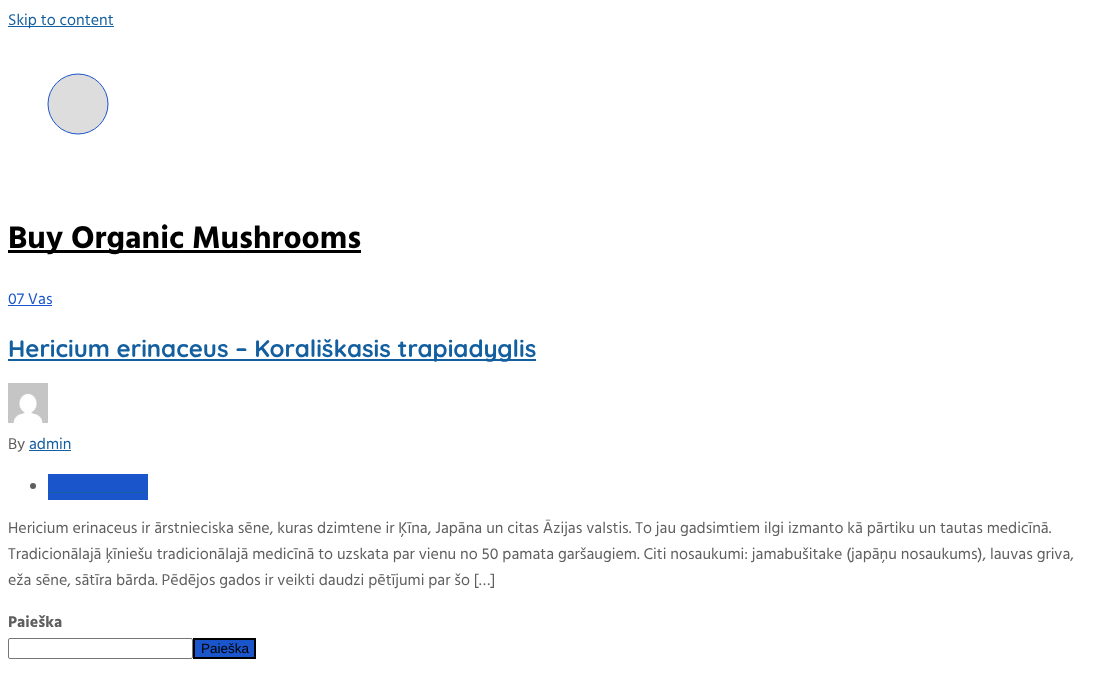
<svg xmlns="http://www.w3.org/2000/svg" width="1107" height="698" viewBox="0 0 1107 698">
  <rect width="100%" height="100%" fill="#fff"/>
  <path d="M8 26h106v1H8z" fill="#145fa0"/>
  <circle cx="78" cy="104" r="30" fill="#ddd" stroke="#1a55cb"/>
  <path d="M8 250h353v3H8z" fill="#000"/>
  <path d="M8 305h44v1H8z" fill="#1a55cb"/>
  <path d="M8 359h528v2H8z" fill="#145fa0"/>
  <image x="8" y="383" width="40" height="40" href="img/1.png"/>
  <path d="M29 450h42v1H29z" fill="#145fa0"/>
  <circle cx="33" cy="486" r="3" fill="#5f5f5f"/>
  <path d="M48 474h100v26H48z" fill="#1a55cb"/>
  <path d="M48 492h100v1H48z" fill="#145fa0"/>
  <rect x="8.5" y="638.5" width="184" height="20" rx="1.5" fill="none" stroke="#767676"/>
  <path d="M194 639h61v19H194z" fill="#1a55cb" stroke="#000" stroke-width="2"/>
  <text x="8" y="25" font-family="Hind" font-size="16" fill="#145fa0">Skip to content</text>
  <text x="8" y="248" font-family="Hind" font-size="32" font-weight="bold" fill="#000">Buy Organic Mushrooms</text>
  <text x="8" y="304" font-family="Hind" font-size="16" fill="#1a55cb">07 Vas</text>
  <text x="8" y="357" font-family="Quicksand" font-size="24" font-weight="bold" fill="#145fa0">Hericium erinaceus – Korališkasis trapiadyglis</text>
  <text x="8" y="449" font-family="Hind" font-size="16" fill="#5f5f5f">By</text>
  <text x="29" y="449" font-family="Hind" font-size="16" fill="#145fa0">admin</text>
  <g font-family="Hind" font-size="16" fill="#5f5f5f">
    <text x="8" y="533">Hericium erinaceus ir ārstnieciska sēne, kuras dzimtene ir Ķīna, Japāna un citas Āzijas valstis. To jau gadsimtiem ilgi izmanto kā pārtiku un tautas medicīnā.</text>
    <text x="8" y="559">Tradicionālajā ķīniešu tradicionālajā medicīnā to uzskata par vienu no 50 pamata garšaugiem. Citi nosaukumi: jamabušitake (japāņu nosaukums), lauvas griva,</text>
    <text x="8" y="585">eža sēne, sātīra bārda. Pēdējos gados ir veikti daudzi pētījumi par šo […]</text>
  </g>
  <text x="8" y="627" font-family="Hind" font-size="16" font-weight="bold" fill="#5f5f5f">Paieška</text>
  <text x="201" y="653" font-family="Liberation Sans" font-size="13.5" fill="#000">Paieška</text>
</svg>
